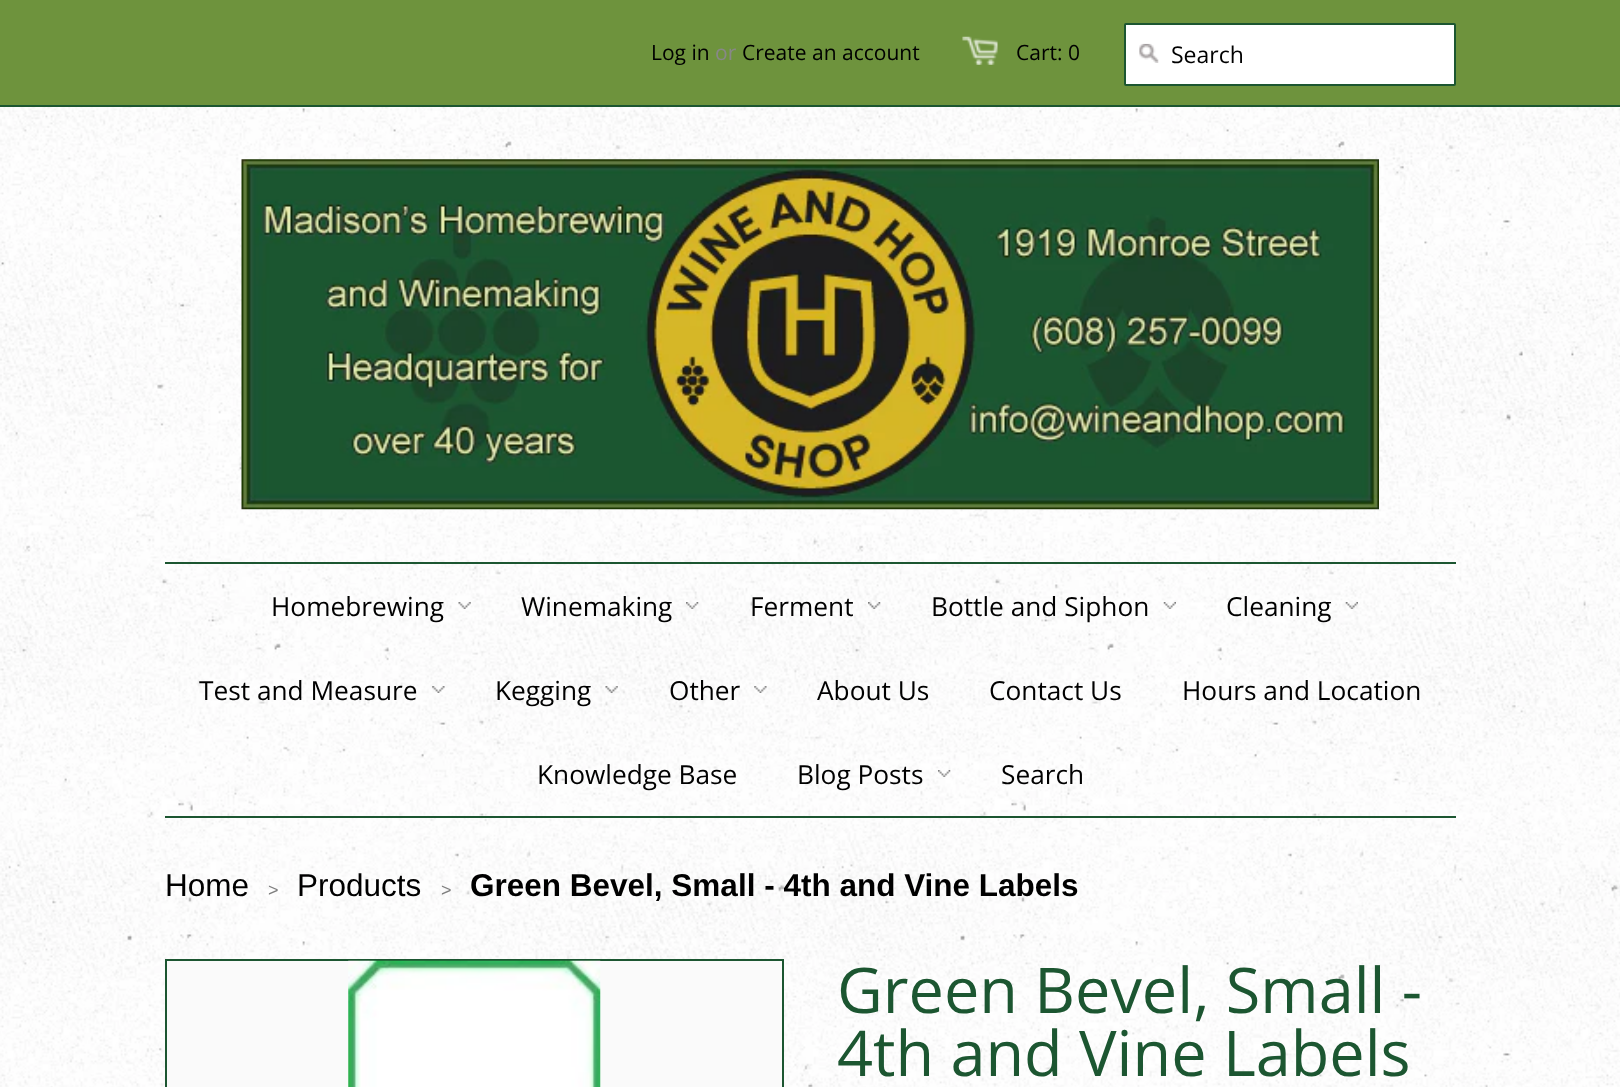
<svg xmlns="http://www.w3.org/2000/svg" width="1620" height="1087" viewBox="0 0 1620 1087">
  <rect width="100%" height="100%" fill="#fff"/>
  <image x="0" y="107" width="1620" height="980" href="img/1.png"/>
  <path d="M0 0h1620v105H0z" fill="#6e933d"/>
  <path d="M0 105h1620v2H0z" fill="#1c5631"/>
  <image x="962" y="36" width="36" height="29" href="img/2.png"/>
  <rect x="1125" y="24" width="330" height="61" rx="1" fill="#fff" stroke="#1c5631" stroke-width="2"/>
  <image x="1139" y="43" width="20" height="20" href="img/3.png"/>
  <image x="241" y="159" width="1138" height="351" href="img/4.png"/>
  <path d="M165 562h1291v2H165z" fill="#1c5631"/>
  <path d="M165 816h1291v2H165z" fill="#1c5631"/>
  <image x="458" y="602" width="13" height="7" href="img/5.png"/>
  <image x="686" y="602" width="13" height="7" href="img/6.png"/>
  <image x="868" y="602" width="13" height="7" href="img/7.png"/>
  <image x="1163" y="602" width="13" height="7" href="img/8.png"/>
  <image x="1345" y="602" width="13" height="7" href="img/9.png"/>
  <image x="432" y="686" width="13" height="7" href="img/10.png"/>
  <image x="605" y="686" width="13" height="7" href="img/11.png"/>
  <image x="754" y="686" width="13" height="7" href="img/12.png"/>
  <image x="938" y="770" width="13" height="7" href="img/13.png"/>
  <path d="M166 960h617v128H166z" fill="#fafafa" stroke="#1c5631" stroke-width="2"/>
  <image x="348" y="960" width="253" height="127" href="img/14.png"/>
  <text x="651" y="60" font-family="Open Sans" font-size="21" fill="#000">Log in</text>
  <text x="715" y="60" font-family="Open Sans" font-size="21" fill="#888">or</text>
  <g font-family="Open Sans" font-size="21" fill="#000">
    <text x="742" y="60">Create an account</text>
    <text x="1016" y="60">Cart: 0</text>
  </g>
  <text x="1171" y="63" font-family="Open Sans" font-size="23" fill="#000">Search</text>
  <g font-family="Open Sans" font-size="26.25" fill="#000">
    <text x="271" y="616">Homebrewing</text>
    <text x="521" y="616">Winemaking</text>
    <text x="750" y="616">Ferment</text>
    <text x="931" y="616">Bottle and Siphon</text>
    <text x="1226" y="616">Cleaning</text>
    <text x="199" y="700">Test and Measure</text>
    <text x="495" y="700">Kegging</text>
    <text x="669" y="700">Other</text>
    <text x="817" y="700">About Us</text>
    <text x="989" y="700">Contact Us</text>
    <text x="1182" y="700">Hours and Location</text>
    <text x="537" y="784">Knowledge Base</text>
    <text x="797" y="784">Blog Posts</text>
    <text x="1001" y="784">Search</text>
  </g>
  <text x="165" y="896" font-family="Liberation Sans" font-size="31.5" fill="#000">Home</text>
  <text x="268" y="896" font-family="Liberation Sans" font-size="18" fill="#7e7e7e">&gt;</text>
  <text x="297" y="896" font-family="Liberation Sans" font-size="31.5" fill="#000">Products</text>
  <text x="441" y="896" font-family="Liberation Sans" font-size="18" fill="#7e7e7e">&gt;</text>
  <text x="470" y="896" font-family="Liberation Sans" font-size="31.5" font-weight="bold" fill="#000">Green Bevel, Small - 4th and Vine Labels</text>
  <g font-family="Open Sans" font-size="63" fill="#1c5631">
    <text x="837" y="1013">Green Bevel, Small -</text>
    <text x="837" y="1076">4th and Vine Labels</text>
  </g>
</svg>
